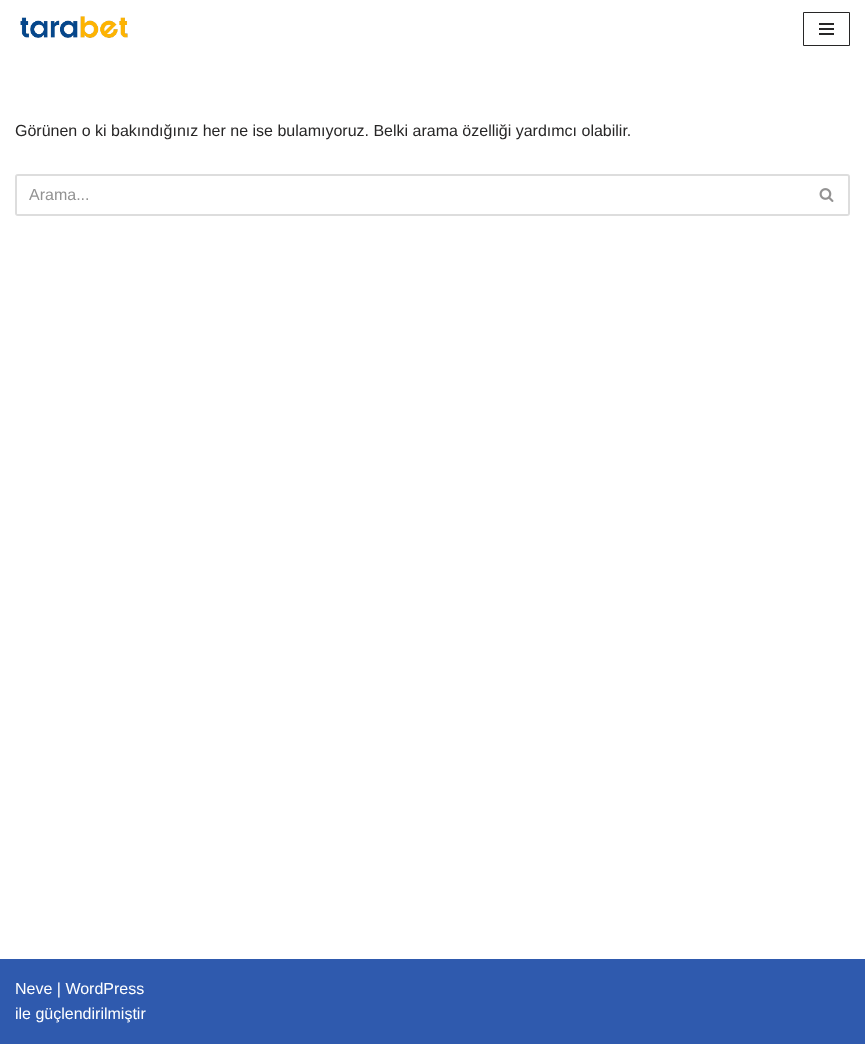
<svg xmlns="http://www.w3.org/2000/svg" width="865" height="1044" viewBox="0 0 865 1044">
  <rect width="100%" height="100%" fill="#fff"/>
  <image x="20" y="16" width="108" height="22" href="img/1.png"/>
  <path d="M803.5 12.5h46v33H803.5z" fill="none" stroke="#272626"/>
  <path d="M819 23h15v2H819z" fill="#272626"/>
  <path d="M819 28h15v2H819z" fill="#272626"/>
  <path d="M819 33h15v2H819z" fill="#272626"/>
  <path d="M18 174H805V216H18C16 216 15 215 15 213V177C15 175 16 174 18 174ZM18 176H805V214H18C17 214 17 214 17 213V177C17 176 17 176 18 176Z" fill="#ddd" fill-rule="evenodd"/>
  <path d="M805 174H847C849 174 850 175 850 177V213C850 215 849 216 847 216H805ZM805 176H847C848 176 848 176 848 177V213C848 214 848 214 847 214H805Z" fill="#ddd" fill-rule="evenodd"/>
  <image x="819" y="188" width="15" height="14" href="img/2.png"/>
  <path d="M0 959h865v85H0z" fill="#2f5aae"/>
  <text x="15" y="136" font-family="Liberation Sans" font-size="16" fill="#272626">Görünen o ki bakındığınız her ne ise bulamıyoruz. Belki arama özelliği yardımcı olabilir.</text>
  <text x="29" y="200" font-family="Liberation Sans" font-size="16" fill="#939393">Arama...</text>
  <g font-family="Liberation Sans" font-size="16" fill="#fff">
    <text x="15" y="994">Neve | WordPress</text>
    <text x="15" y="1019">ile güçlendirilmiştir</text>
  </g>
</svg>
